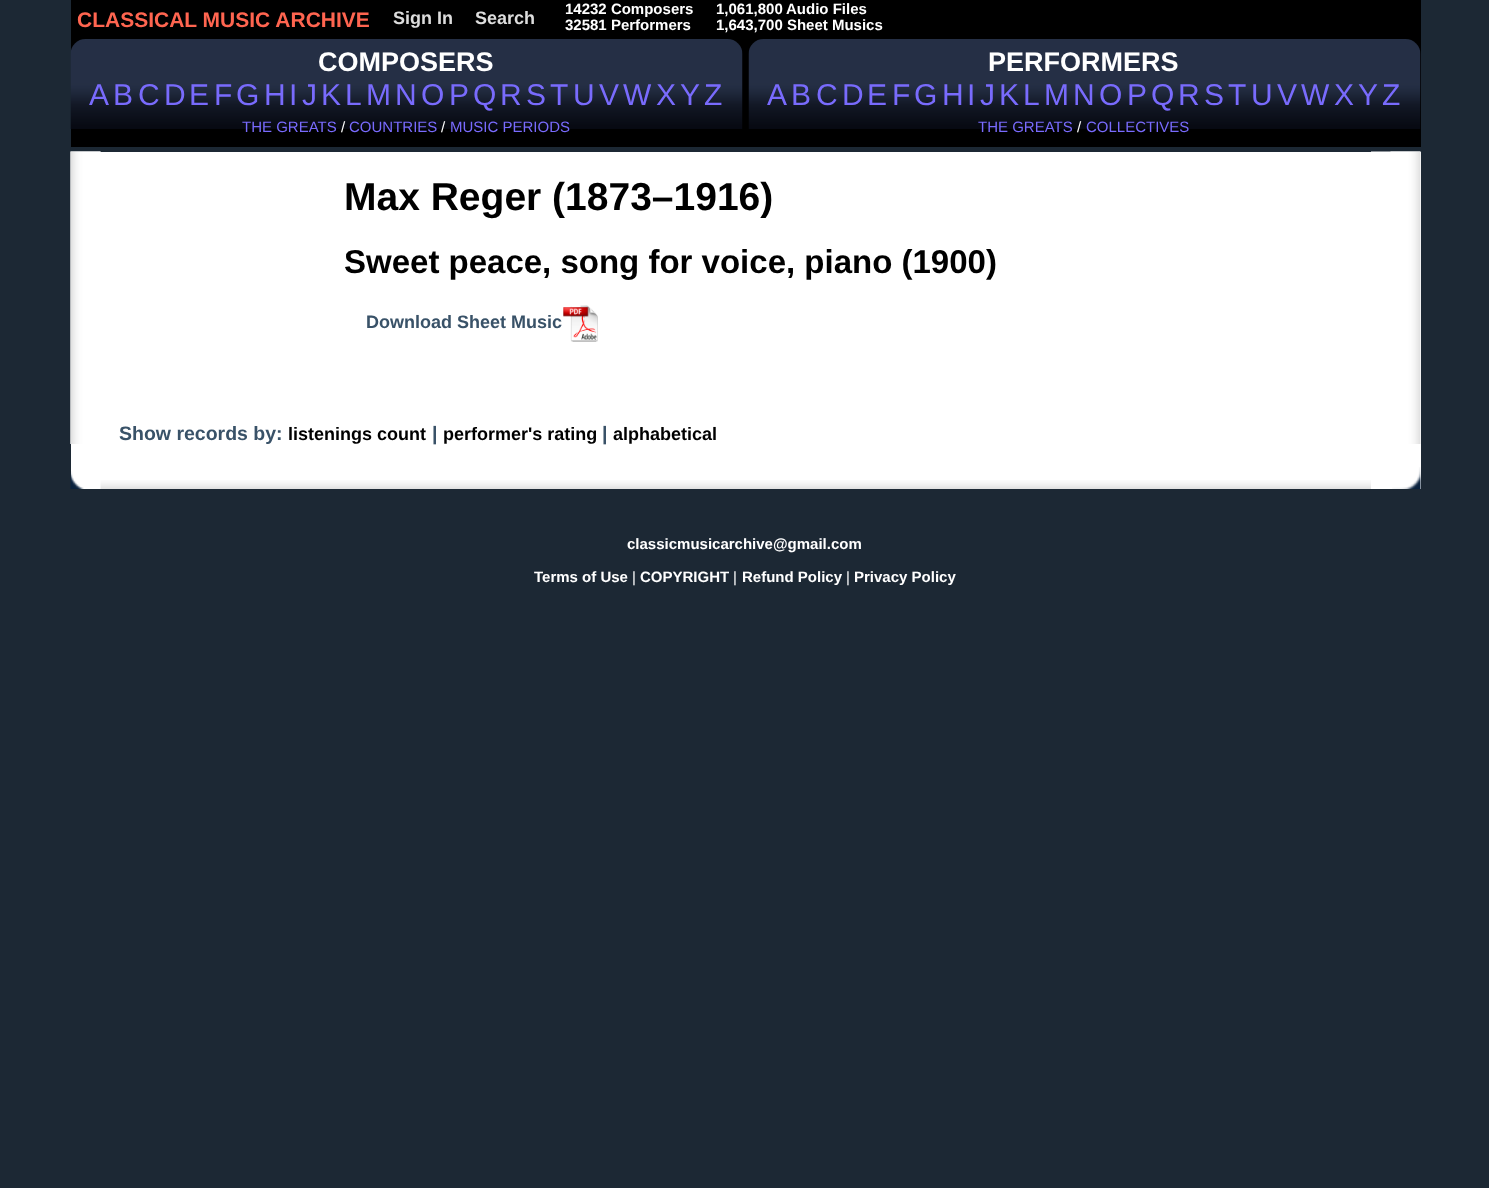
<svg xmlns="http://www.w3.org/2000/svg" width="1489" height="1188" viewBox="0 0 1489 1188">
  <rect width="100%" height="100%" fill="#1c2834"/>
  <path d="M71 0h1350v147H71z" fill="#000"/>
  <image x="70" y="39" width="673" height="90" href="img/1.png"/>
  <image x="748" y="39" width="673" height="90" href="img/2.png"/>
  <path d="M71 152h1350v337H71z" fill="#fff"/>
  <image x="70" y="151" width="31" height="293" href="img/3.png"/>
  <image x="563" y="305" width="35" height="37" href="img/4.png"/>
  <image x="1371" y="151" width="50" height="293" href="img/5.png"/>
  <image x="70" y="471" width="14" height="18" href="img/6.png"/>
  <image x="100" y="480" width="1271" height="9" href="img/7.png"/>
  <image x="1392" y="467" width="29" height="22" href="img/8.png"/>
  <text x="77" y="27" font-family="Liberation Sans" font-size="21" font-weight="bold" fill="#ff6550">CLASSICAL MUSIC ARCHIVE</text>
  <g font-family="Liberation Sans" font-size="18" font-weight="bold" fill="#ddd">
    <text x="393" y="24">Sign In</text>
    <text x="475" y="24">Search</text>
  </g>
  <g font-family="Liberation Sans" font-size="15" font-weight="bold" fill="#fff">
    <text x="565" y="14">14232 Composers</text>
    <text x="565" y="30">32581 Performers</text>
    <text x="716" y="14">1,061,800</text>
    <text x="786" y="14">Audio Files</text>
    <text x="716" y="30">1,643,700 Sheet Musics</text>
  </g>
  <text x="318" y="71" font-family="Liberation Sans" font-size="27" font-weight="bold" fill="#fff">COMPOSERS</text>
  <g font-family="Liberation Sans" font-size="30" fill="#796bfd">
    <text x="89" y="105">A</text>
    <text x="113" y="105">B</text>
    <text x="138" y="105">C</text>
    <text x="164" y="105">D</text>
    <text x="189" y="105">E</text>
    <text x="214" y="105">F</text>
    <text x="236" y="105">G</text>
    <text x="264" y="105">H</text>
    <text x="289" y="105">I</text>
    <text x="302" y="105">J</text>
    <text x="321" y="105">K</text>
    <text x="345" y="105">L</text>
    <text x="366" y="105">M</text>
    <text x="395" y="105">N</text>
    <text x="421" y="105">O</text>
    <text x="449" y="105">P</text>
    <text x="473" y="105">Q</text>
    <text x="500" y="105">R</text>
    <text x="526" y="105">S</text>
    <text x="550" y="105">T</text>
    <text x="573" y="105">U</text>
    <text x="599" y="105">V</text>
    <text x="623" y="105">W</text>
    <text x="656" y="105">X</text>
    <text x="680" y="105">Y</text>
    <text x="704" y="105">Z</text>
  </g>
  <text x="242" y="132" font-family="Liberation Sans" font-size="15" fill="#796bfd">THE GREATS</text>
  <text x="341" y="132" font-family="Liberation Sans" font-size="15" fill="#fff">/</text>
  <text x="349" y="132" font-family="Liberation Sans" font-size="15" fill="#796bfd">COUNTRIES</text>
  <text x="441" y="132" font-family="Liberation Sans" font-size="15" fill="#fff">/</text>
  <text x="450" y="132" font-family="Liberation Sans" font-size="15" fill="#796bfd">MUSIC PERIODS</text>
  <text x="988" y="71" font-family="Liberation Sans" font-size="27" font-weight="bold" fill="#fff">PERFORMERS</text>
  <g font-family="Liberation Sans" font-size="30" fill="#796bfd">
    <text x="767" y="105">A</text>
    <text x="791" y="105">B</text>
    <text x="816" y="105">C</text>
    <text x="842" y="105">D</text>
    <text x="867" y="105">E</text>
    <text x="892" y="105">F</text>
    <text x="914" y="105">G</text>
    <text x="942" y="105">H</text>
    <text x="967" y="105">I</text>
    <text x="980" y="105">J</text>
    <text x="999" y="105">K</text>
    <text x="1023" y="105">L</text>
    <text x="1044" y="105">M</text>
    <text x="1073" y="105">N</text>
    <text x="1099" y="105">O</text>
    <text x="1127" y="105">P</text>
    <text x="1151" y="105">Q</text>
    <text x="1178" y="105">R</text>
    <text x="1204" y="105">S</text>
    <text x="1228" y="105">T</text>
    <text x="1251" y="105">U</text>
    <text x="1277" y="105">V</text>
    <text x="1301" y="105">W</text>
    <text x="1334" y="105">X</text>
    <text x="1358" y="105">Y</text>
    <text x="1382" y="105">Z</text>
  </g>
  <text x="978" y="132" font-family="Liberation Sans" font-size="15" fill="#796bfd">THE GREATS</text>
  <text x="1077" y="132" font-family="Liberation Sans" font-size="15" fill="#fff">/</text>
  <text x="1086" y="132" font-family="Liberation Sans" font-size="15" fill="#796bfd">COLLECTIVES</text>
  <text x="344" y="210" font-family="Liberation Sans" font-size="39" font-weight="bold" fill="#000">Max Reger (1873–1916)</text>
  <text x="344" y="273" font-family="Liberation Sans" font-size="33" font-weight="bold" fill="#000">Sweet peace, song for voice, piano (1900)</text>
  <text x="366" y="328" font-family="Liberation Sans" font-size="18" font-weight="bold" fill="#395268">Download Sheet Music</text>
  <text x="119" y="440" font-family="Liberation Sans" font-size="19.5" font-weight="bold" fill="#395268">Show records by:</text>
  <text x="288" y="440" font-family="Liberation Sans" font-size="18" font-weight="bold" fill="#000">listenings count</text>
  <text x="432" y="440" font-family="Liberation Sans" font-size="19.5" font-weight="bold" fill="#395268">|</text>
  <text x="443" y="440" font-family="Liberation Sans" font-size="18" font-weight="bold" fill="#000">performer's rating</text>
  <text x="602" y="440" font-family="Liberation Sans" font-size="19.5" font-weight="bold" fill="#395268">|</text>
  <text x="613" y="440" font-family="Liberation Sans" font-size="18" font-weight="bold" fill="#000">alphabetical</text>
  <g font-family="Liberation Sans" font-size="15" font-weight="bold" fill="#fff">
    <text x="627" y="549">classicmusicarchive@gmail.com</text>
    <text x="534" y="582">Terms of Use</text>
  </g>
  <text x="632" y="582" font-family="Liberation Sans" font-size="15" fill="#fff">|</text>
  <text x="640" y="582" font-family="Liberation Sans" font-size="15" font-weight="bold" fill="#fff">COPYRIGHT</text>
  <text x="733" y="582" font-family="Liberation Sans" font-size="15" fill="#fff">|</text>
  <text x="742" y="582" font-family="Liberation Sans" font-size="15" font-weight="bold" fill="#fff">Refund Policy</text>
  <text x="846" y="582" font-family="Liberation Sans" font-size="15" fill="#fff">|</text>
  <text x="854" y="582" font-family="Liberation Sans" font-size="15" font-weight="bold" fill="#fff">Privacy Policy</text>
</svg>
